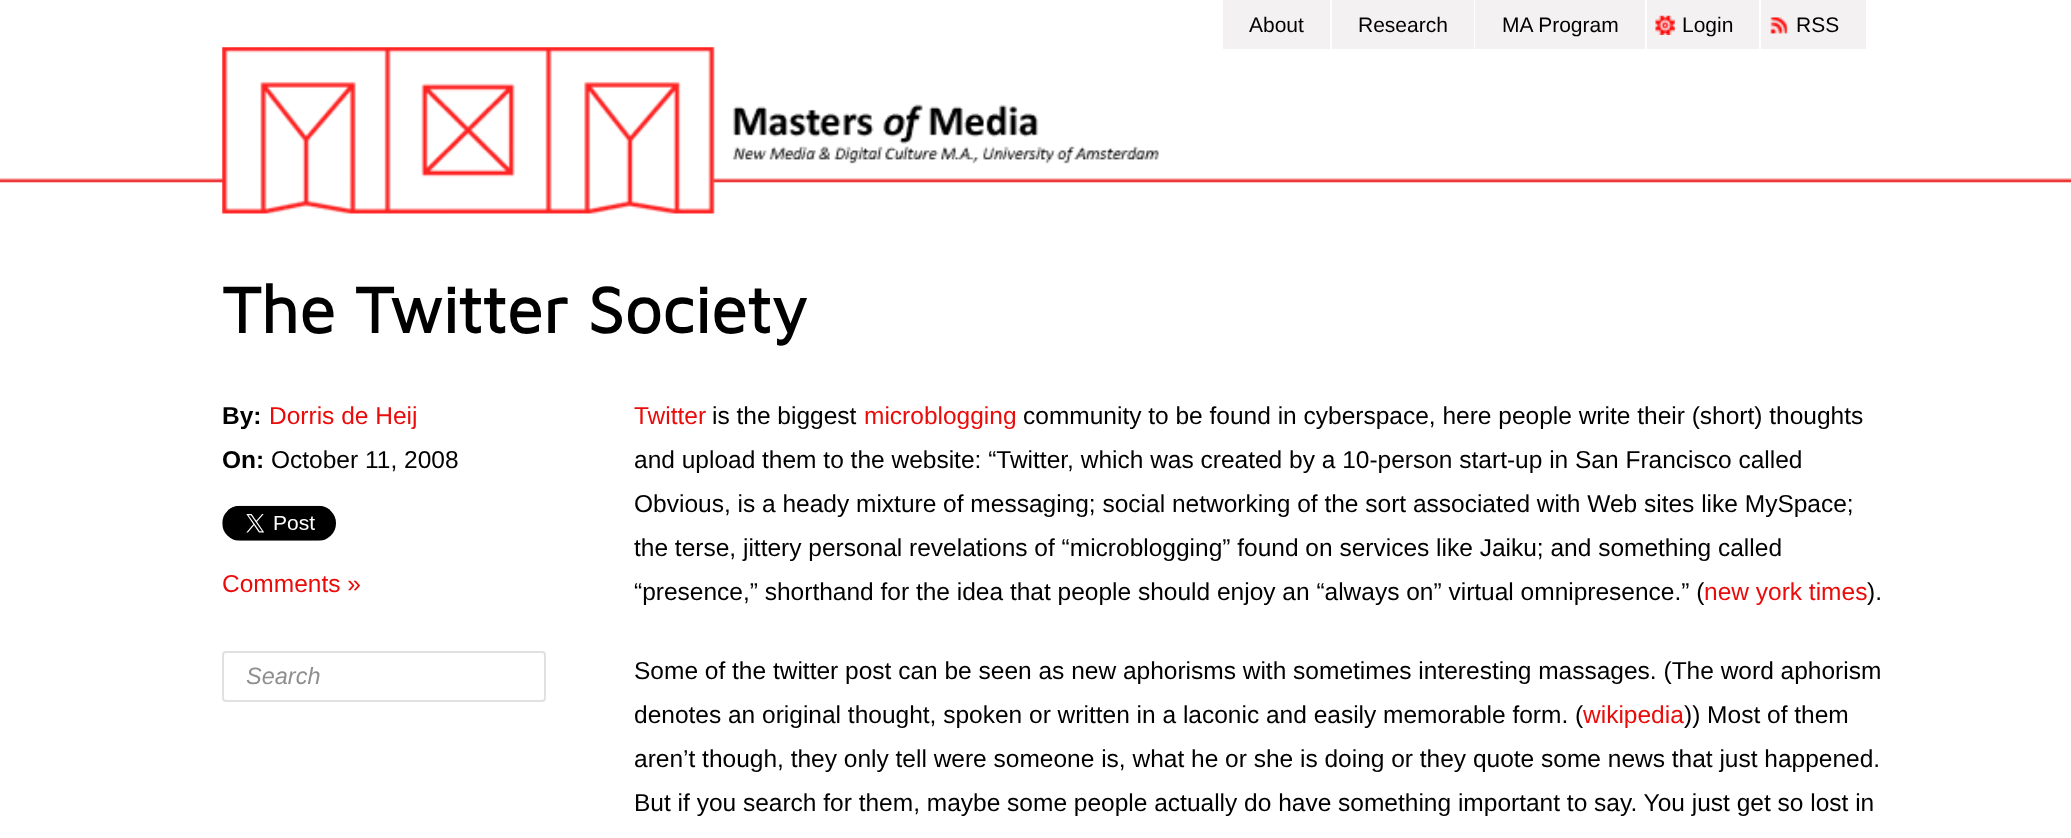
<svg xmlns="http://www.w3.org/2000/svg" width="2071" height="838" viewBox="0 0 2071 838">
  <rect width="100%" height="100%" fill="#fff"/>
  <path d="M1223 0h107v49H1223z" fill="#f3f1f1"/>
  <path d="M1332 0h142v49H1332z" fill="#f3f1f1"/>
  <path d="M1475 0h170v49H1475z" fill="#f3f1f1"/>
  <path d="M1647 0h112v49H1647z" fill="#f3f1f1"/>
  <image x="1655" y="15" width="20" height="20" href="img/1.png"/>
  <path d="M1761 0h105v49H1761z" fill="#f3f1f1"/>
  <image x="1770" y="17" width="18" height="17" href="img/2.png"/>
  <image x="0" y="178" width="2071" height="5" href="img/3.png"/>
  <image x="222" y="47" width="937" height="167" href="img/4.png"/>
  <image x="222" y="505" width="114" height="36" href="img/5.png"/>
  <rect x="223" y="652" width="322" height="49" rx="3" fill="none" stroke="#e2e0e0" stroke-width="2"/>
  <g font-family="Liberation Sans" font-size="21" fill="#000">
    <text x="1249" y="32">About</text>
    <text x="1358" y="32">Research</text>
    <text x="1502" y="32">MA Program</text>
    <text x="1682" y="32">Login</text>
    <text x="1796" y="32">RSS</text>
  </g>
  <text x="222" y="333" font-family="Maven Pro" font-size="66.5" font-weight="bold" fill="#000">The Twitter Society</text>
  <text x="222" y="424" font-family="Liberation Sans" font-size="24.5" font-weight="bold" fill="#000">By:</text>
  <text x="269" y="424" font-family="Liberation Sans" font-size="24.5" fill="#ea0b0b">Dorris de Heij</text>
  <text x="222" y="468" font-family="Liberation Sans" font-size="24.5" font-weight="bold" fill="#000">On:</text>
  <text x="271" y="468" font-family="Liberation Sans" font-size="24.5" fill="#000">October 11, 2008</text>
  <text x="222" y="592" font-family="Liberation Sans" font-size="24.5" fill="#ea0b0b">Comments »</text>
  <text x="246" y="684" font-family="Liberation Sans" font-size="23.5" font-style="italic" fill="#8f8f8f">Search</text>
  <text x="634" y="424" font-family="Liberation Sans" font-size="24.5" fill="#ea0b0b">Twitter</text>
  <text x="712" y="424" font-family="Liberation Sans" font-size="24.5" fill="#000">is the biggest</text>
  <text x="864" y="424" font-family="Liberation Sans" font-size="24.5" fill="#ea0b0b">microblogging</text>
  <g font-family="Liberation Sans" font-size="24.5" fill="#000">
    <text x="1023" y="424">community to be found in cyberspace, here people write their (short) thoughts</text>
    <text x="634" y="468">and upload them to the website: “Twitter, which was created by a 10-person start-up in San Francisco called</text>
    <text x="634" y="512">Obvious, is a heady mixture of messaging; social networking of the sort associated with Web sites like MySpace;</text>
    <text x="634" y="556">the terse, jittery personal revelations of “microblogging” found on services like Jaiku; and something called</text>
    <text x="634" y="600">“presence,” shorthand for the idea that people should enjoy an “always on” virtual omnipresence.” (</text>
  </g>
  <text x="1704" y="600" font-family="Liberation Sans" font-size="24.5" fill="#ea0b0b">new york times</text>
  <g font-family="Liberation Sans" font-size="24.5" fill="#000">
    <text x="1867" y="600">).</text>
    <text x="634" y="679">Some of the twitter post can be seen as new aphorisms with sometimes interesting massages. (The word aphorism</text>
    <text x="634" y="723">denotes an original thought, spoken or written in a laconic and easily memorable form. (</text>
  </g>
  <text x="1583" y="723" font-family="Liberation Sans" font-size="24.5" fill="#ea0b0b">wikipedia</text>
  <g font-family="Liberation Sans" font-size="24.5" fill="#000">
    <text x="1684" y="723">)) Most of them</text>
    <text x="634" y="767">aren’t though, they only tell were someone is, what he or she is doing or they quote some news that just happened.</text>
    <text x="634" y="811">But if you search for them, maybe some people actually do have something important to say. You just get so lost in</text>
  </g>
</svg>
